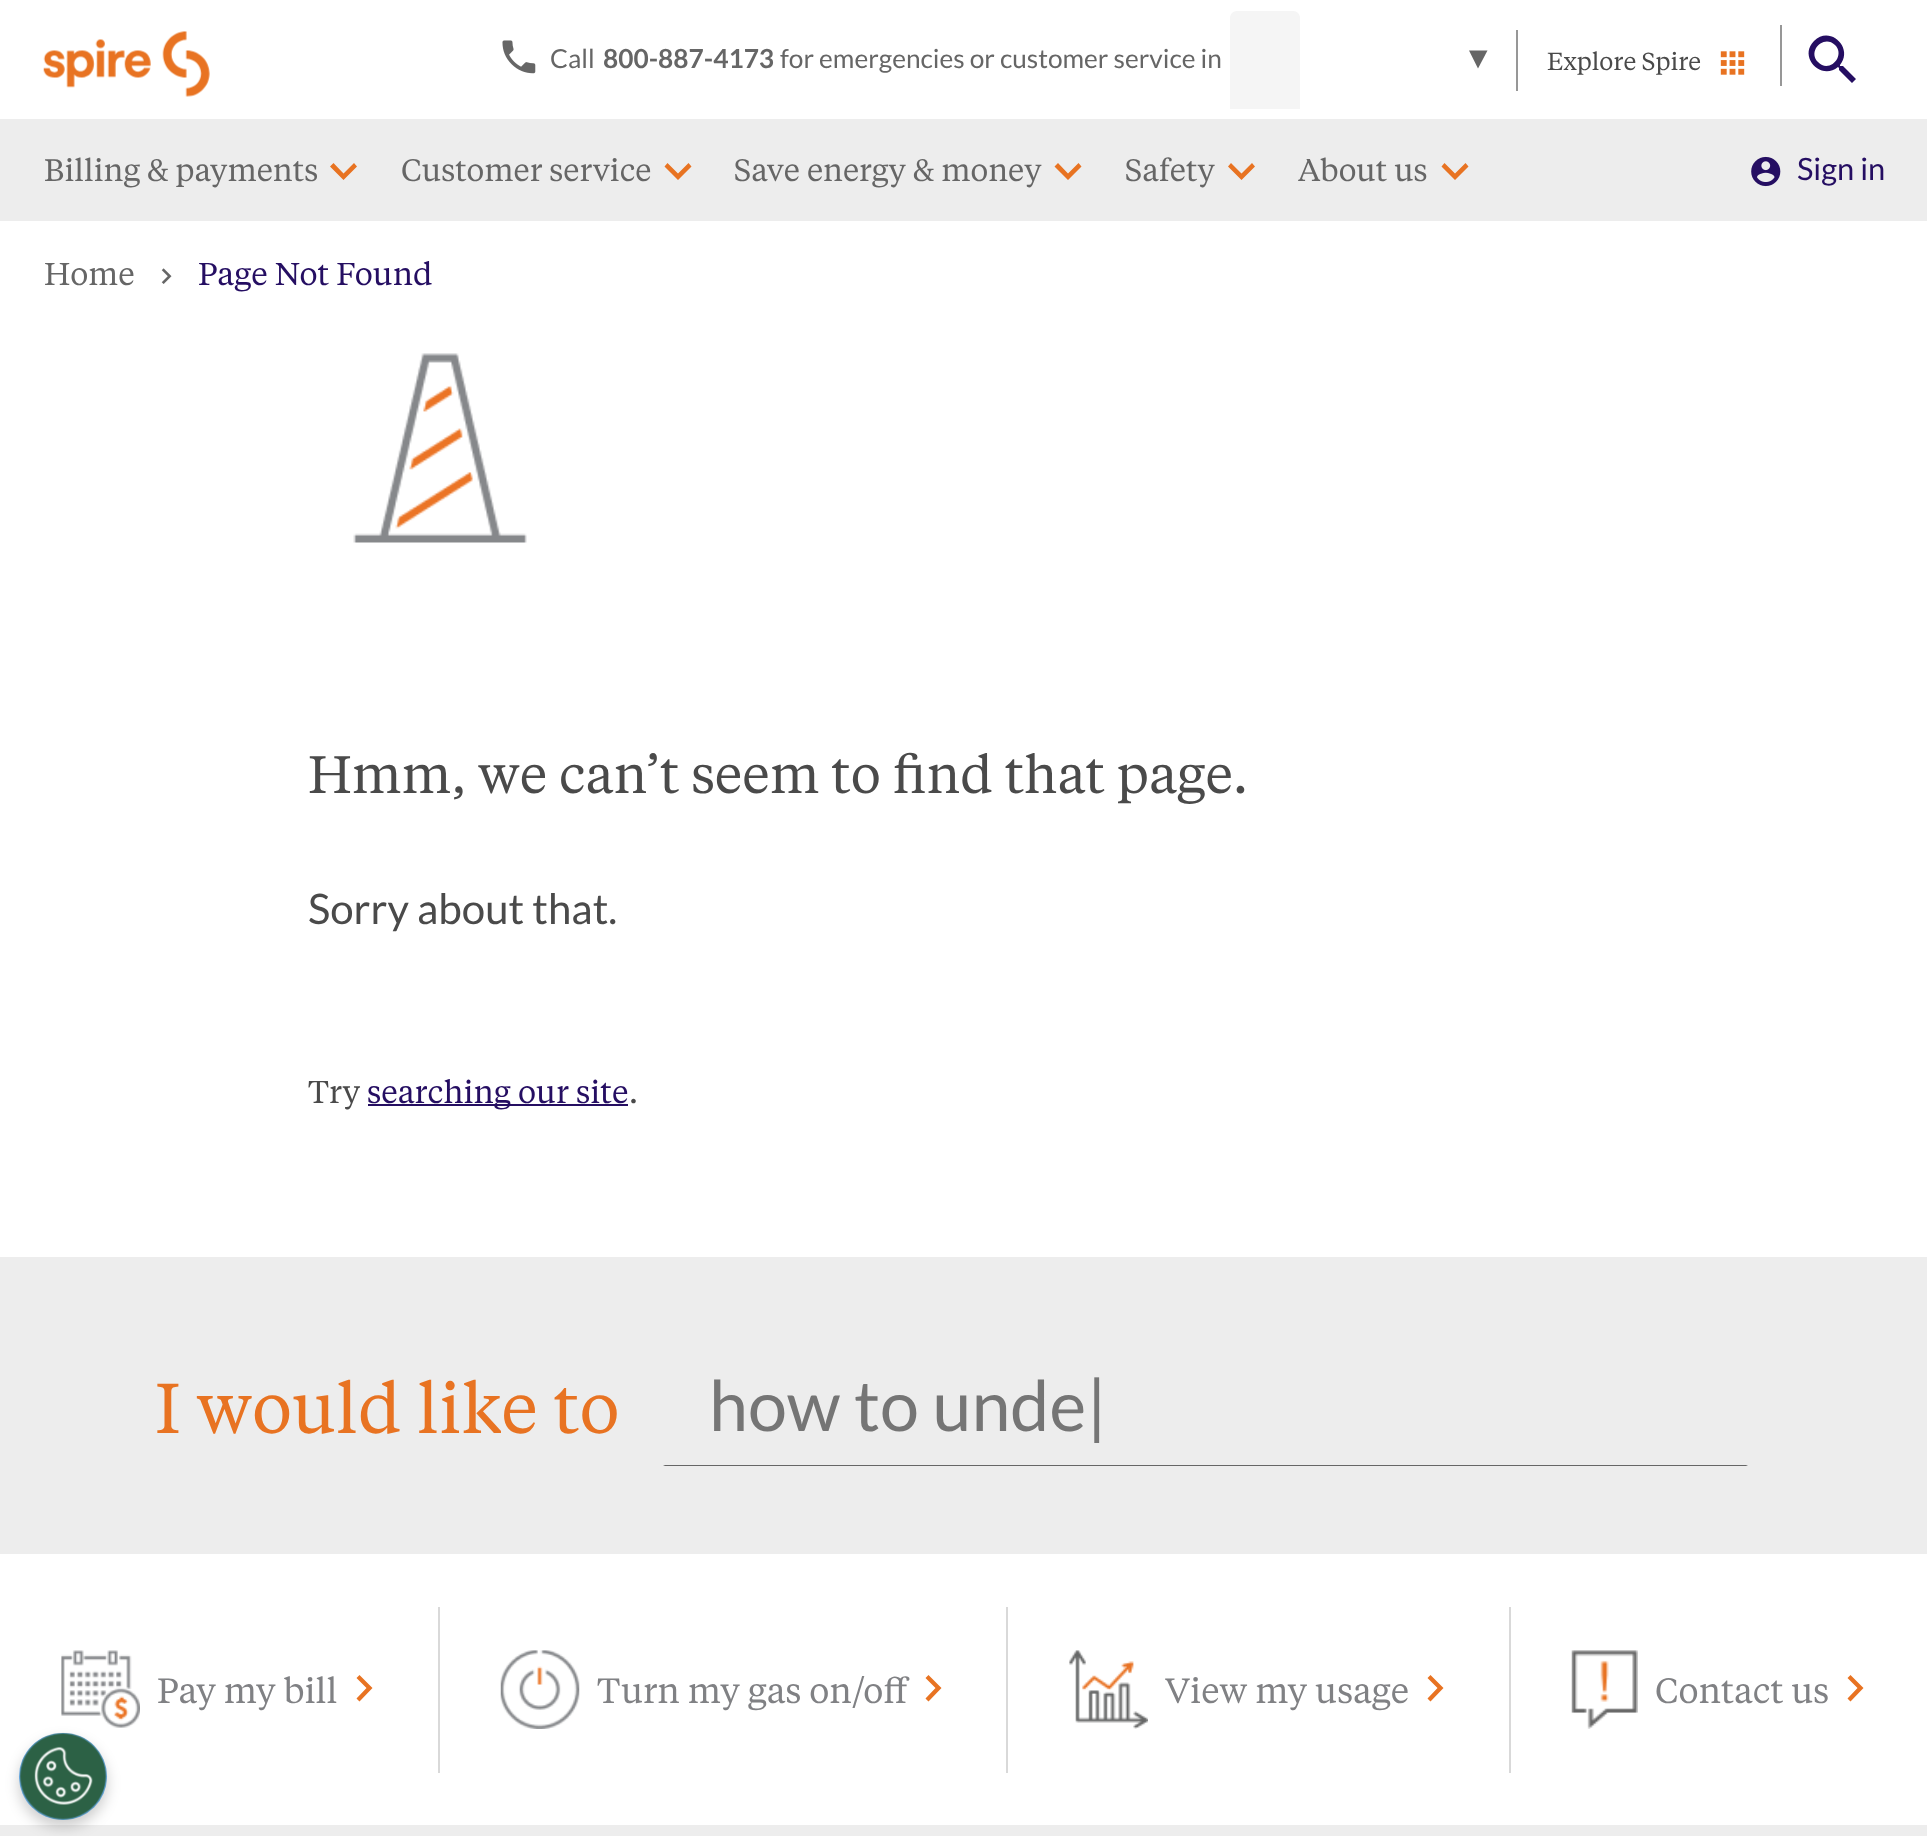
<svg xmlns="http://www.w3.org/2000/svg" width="1927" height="1836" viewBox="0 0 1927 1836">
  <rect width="100%" height="100%" fill="#fff"/>
  <image x="43" y="31" width="167" height="66" href="img/1.png"/>
  <image x="502" y="40" width="34" height="34" href="img/2.png"/>
  <path d="M1237 11H1293C1297 11 1300 14 1300 18V109H1230V18C1230 14 1233 11 1237 11Z" fill="#f5f5f5"/>
  <path d="M1469 50.5H1487.5L1478 68.5Z" fill="#666"/>
  <path d="M1516 30h2v61H1516z" fill="#979797"/>
  <image x="1720" y="51" width="25" height="24" href="img/3.png"/>
  <path d="M1780 25h2v61H1780z" fill="#979797"/>
  <path d="M1818 62C1829 74 1846 56 1835 45C1824 34 1807 51 1818 62ZM1843 66L1856 79L1852 83L1839 70V68L1838 67C1821 81 1798 57 1814 41C1830 25 1854 48 1840 65V66Z" fill="#250e62"/>
  <path d="M0 119h1927v102H0z" fill="#ededed"/>
  <path d="M333.5 163L343.5 173.5L354 163L357 166.5L343.5 180L330 166.5Z" fill="#e87322"/>
  <path d="M667.5 163L678 173.5L688.5 163L691.5 166.5L678 180L664.5 166.5Z" fill="#e87322"/>
  <path d="M1058 163L1068 173.5L1078.5 163L1081.5 166.5L1068 180L1054.5 166.5Z" fill="#e87322"/>
  <path d="M1231 163L1241.5 173.5L1252 163L1255 166.5L1241.5 180L1228 166.5Z" fill="#e87322"/>
  <path d="M1444.5 163L1455 173.5L1465.5 163L1468.5 166.5L1455 180L1441.5 166.5Z" fill="#e87322"/>
  <image x="1751" y="156" width="30" height="31" href="img/4.png"/>
  <image x="161" y="268" width="11" height="16" href="img/5.png"/>
  <image x="353" y="353" width="174" height="190" href="img/6.png"/>
  <path d="M368 1104h260v2H368z" fill="#250e62"/>
  <path d="M0 1257h1927v297H0z" fill="#ededed"/>
  <path d="M1748 1466H663L665 1465H1746Z" fill="#666"/>
  <path d="M438 1607h2v166H438z" fill="#d9d9d9"/>
  <image x="61" y="1650" width="79" height="78" href="img/7.png"/>
  <path d="M356.5 1698.5L366.5 1688L356.5 1678L359.5 1675L372.5 1688L359.5 1701.5Z" fill="#e87322"/>
  <path d="M1006 1607h2v166H1006z" fill="#d9d9d9"/>
  <image x="500" y="1650" width="80" height="79" href="img/8.png"/>
  <path d="M925.5 1698.5L935.5 1688L925.5 1678L928.5 1675L941.5 1688L928.5 1701.5Z" fill="#e87322"/>
  <path d="M1509 1607h2v166H1509z" fill="#d9d9d9"/>
  <image x="1069" y="1650" width="79" height="79" href="img/9.png"/>
  <path d="M1427.5 1698.5L1437.5 1688L1427.5 1678L1430.5 1675L1443.5 1688L1430.5 1701.5Z" fill="#e87322"/>
  <image x="1571" y="1650" width="67" height="79" href="img/10.png"/>
  <path d="M1847.5 1698.5L1857.5 1688L1847.5 1678L1850.5 1675L1863.5 1688L1850.5 1701.5Z" fill="#e87322"/>
  <path d="M0 1825h1927v11H0z" fill="#ededed"/>
  <rect x="19" y="1740" width="88" height="87" rx="43.5" fill="#00000033" filter="blur(7px)"/>
  <rect x="19" y="1733" width="88" height="87" rx="43.5" fill="#6aaae4"/>
  <image x="19" y="1732" width="88" height="88" href="img/11.png"/>
  <text x="550" y="68" font-family="Lato" font-size="26.25" fill="#666">Call</text>
  <text x="603" y="68" font-family="Lato" font-size="26.25" font-weight="bold" fill="#666">800-887-4173</text>
  <text x="780" y="68" font-family="Lato" font-size="26.25" fill="#666">for emergencies or customer service in</text>
  <text x="1547" y="70" font-family="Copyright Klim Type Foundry" font-size="24.5" fill="#4a4a4a">Explore Spire</text>
  <g font-family="Copyright Klim Type Foundry" font-size="30.9" fill="#666">
    <text x="44" y="181">Billing &amp; payments</text>
    <text x="401" y="181">Customer service</text>
    <text x="734" y="181">Save energy &amp; money</text>
    <text x="1125" y="181">Safety</text>
    <text x="1298" y="181">About us</text>
  </g>
  <text x="1797" y="180" font-family="Lato" font-size="30.9" fill="#250e62">Sign in</text>
  <text x="44" y="285" font-family="Copyright Klim Type Foundry" font-size="31.5" fill="#666">Home</text>
  <text x="198" y="285" font-family="Copyright Klim Type Foundry" font-size="31.5" fill="#250e62">Page Not Found</text>
  <text x="308" y="793" font-family="Copyright Klim Type Foundry" font-size="52.5" fill="#4a4a4a">Hmm, we can’t seem to find that page.</text>
  <text x="308" y="924" font-family="Lato" font-size="42" fill="#4a4a4a">Sorry about that.</text>
  <text x="308" y="1103" font-family="Copyright Klim Type Foundry" font-size="31.5" fill="#4a4a4a">Try</text>
  <text x="367" y="1103" font-family="Copyright Klim Type Foundry" font-size="31.5" fill="#250e62">searching our site</text>
  <text x="629" y="1103" font-family="Copyright Klim Type Foundry" font-size="31.5" fill="#4a4a4a">.</text>
  <text x="155" y="1433" font-family="Copyright Klim Type Foundry" font-size="70" fill="#e87322">I would like to</text>
  <text x="709" y="1431" font-family="Lato" font-size="70" fill="#757575">how to unde|</text>
  <g font-family="Copyright Klim Type Foundry" font-size="35" fill="#808184">
    <text x="157" y="1703">Pay my bill</text>
    <text x="597" y="1703">Turn my gas on/off</text>
    <text x="1165" y="1703">View my usage</text>
    <text x="1655" y="1703">Contact us</text>
  </g>
</svg>
